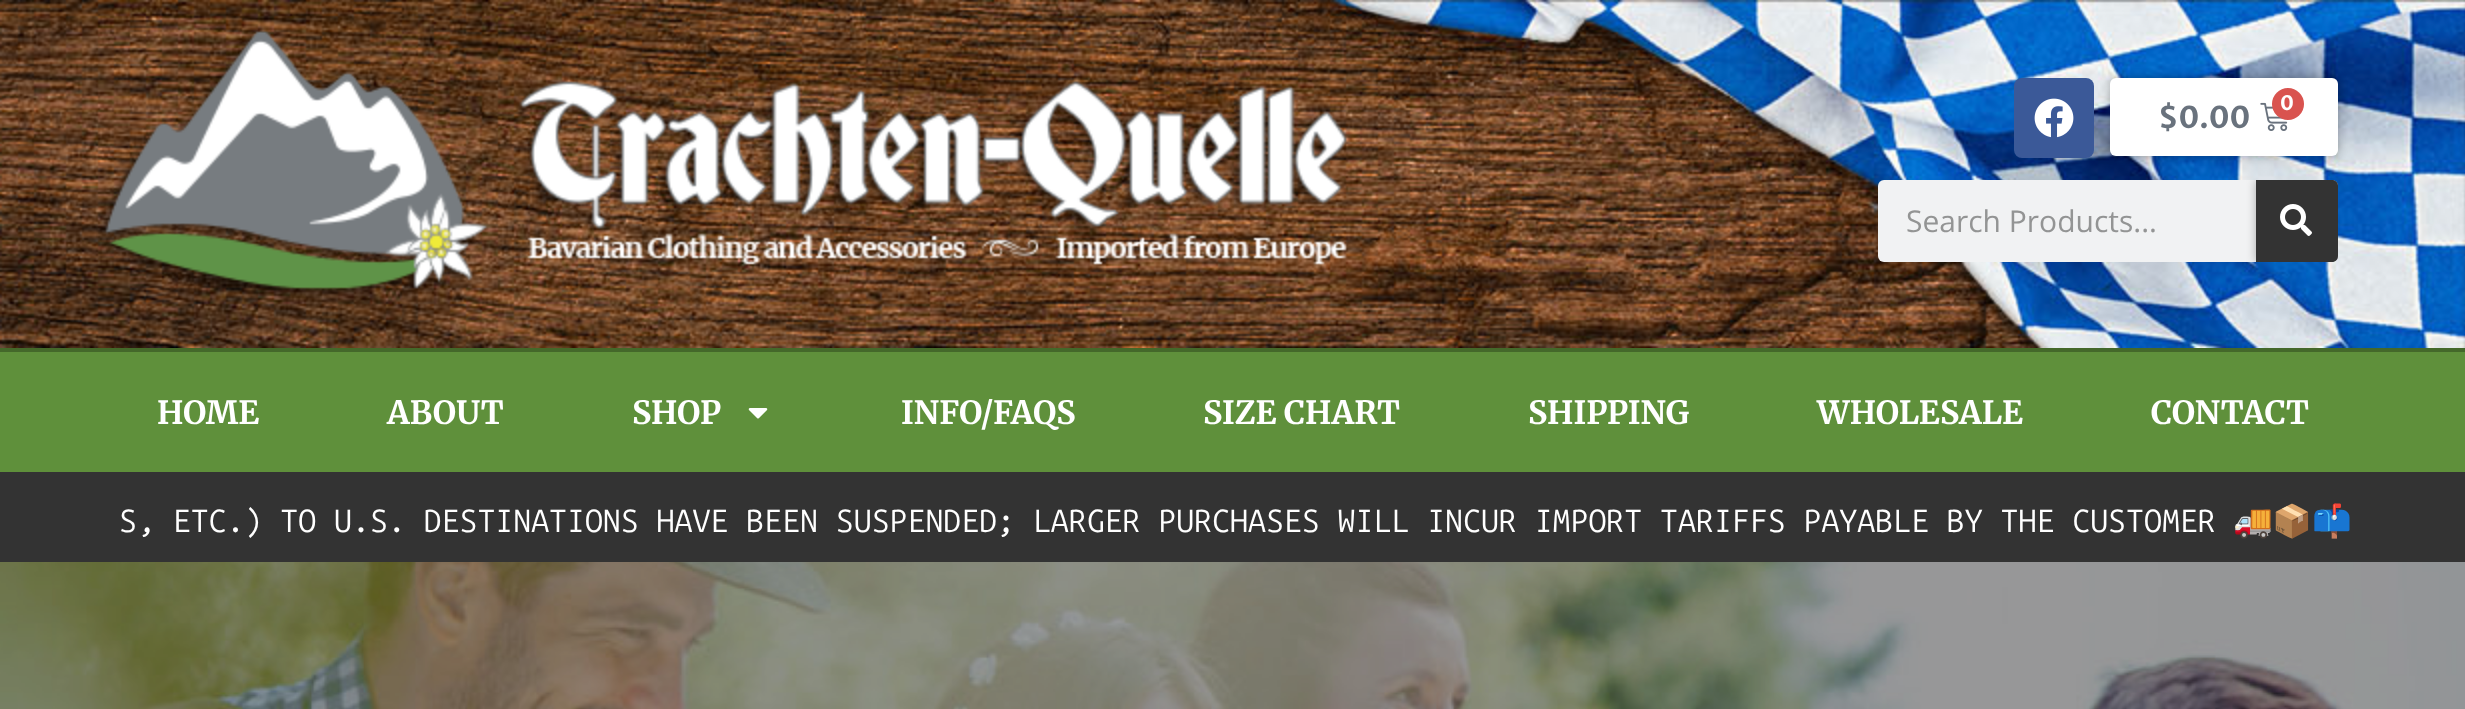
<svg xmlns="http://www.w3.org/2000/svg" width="2465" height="709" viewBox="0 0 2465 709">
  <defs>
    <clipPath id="clip1"><rect x="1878" y="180" width="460" height="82" rx="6"/></clipPath>
  </defs>
  <rect width="100%" height="100%" fill="#fff"/>
  <image x="0" y="0" width="2465" height="348" href="img/1.png"/>
  <image x="96" y="30" width="1251" height="268" href="img/2.png"/>
  <rect x="2014" y="78" width="80" height="80" rx="8" fill="#3b5998"/>
  <image x="2034" y="98" width="40" height="40" href="img/3.png"/>
  <rect x="2110" y="78" width="228" height="78" rx="6" fill="#0000004d" filter="blur(5px)"/>
  <rect x="2110" y="78" width="228" height="78" rx="6" fill="#fff"/>
  <image x="2260" y="102" width="28" height="29" href="img/4.png"/>
  <circle cx="2288" cy="104" r="16" fill="#d9534f"/>
  <rect x="1878" y="180" width="460" height="82" rx="6" fill="#f1f2f3"/>
  <g clip-path="url(#clip1)">
    <path d="M2256 180h82v82H2256z" fill="#0000004d" filter="blur(5px)"/>
  </g>
  <path d="M2256 180H2332C2335.5 180 2338 182.5 2338 186V256C2338 259.5 2335.5 262 2332 262H2256Z" fill="#333"/>
  <image x="2280" y="204" width="32" height="32" href="img/5.png"/>
  <path d="M0 352h2465v120H0z" fill="#5f903b"/>
  <path d="M0 348h2465v4H0z" fill="#44682a"/>
  <image x="748" y="408" width="20" height="11" href="img/6.png"/>
  <path d="M0 472h2465v90H0z" fill="#333"/>
  <image x="0" y="562" width="2465" height="147" href="img/7.png"/>
  <text x="2158" y="128" font-family="Merriweather Sans" font-size="30" font-weight="bold" fill="#69727d">$0.00</text>
  <text x="2280" y="110" font-family="Merriweather Sans" font-size="20" font-weight="bold" fill="#fff">0</text>
  <text x="1906" y="232" font-family="Open Sans" font-size="30" fill="#939494">Search Products...</text>
  <g font-family="Merriweather" font-size="32" font-weight="bold" fill="#fff">
    <text x="157" y="424">HOME</text>
    <text x="387" y="424">ABOUT</text>
    <text x="632" y="424">SHOP</text>
    <text x="901" y="424">INFO/FAQS</text>
    <text x="1203" y="424">SIZE CHART</text>
    <text x="1528" y="424">SHIPPING</text>
    <text x="1817" y="424">WHOLESALE</text>
    <text x="2151" y="424">CONTACT</text>
  </g>
  <text x="119" y="532" font-family="Ubuntu Mono" font-size="32" fill="#fff">S, ETC.) TO U.S. DESTINATIONS HAVE BEEN SUSPENDED; LARGER PURCHASES WILL INCUR IMPORT TARIFFS PAYABLE BY THE CUSTOMER</text>
  <text x="2233" y="532" font-family="Noto Color Emoji" font-size="32" fill="#fff">🚚📦📫</text>
</svg>
